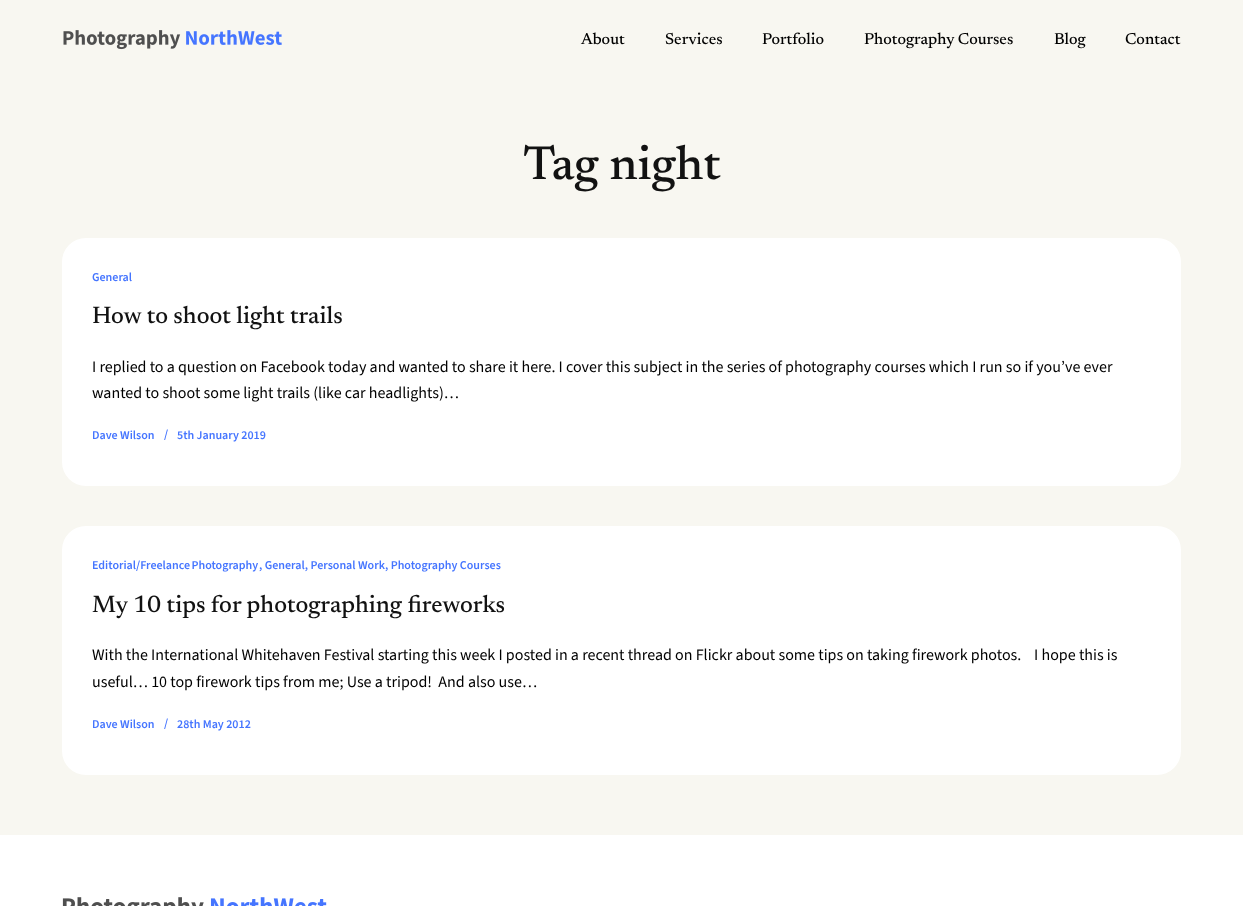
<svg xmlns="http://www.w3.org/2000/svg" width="1243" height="906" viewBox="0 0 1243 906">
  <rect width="100%" height="100%" fill="#f8f7f1"/>
  <image x="63" y="30" width="219" height="20" href="img/1.png"/>
  <rect x="62" y="238" width="1119" height="248" rx="24" fill="#fff"/>
  <rect x="62" y="526" width="1119" height="249" rx="24" fill="#fff"/>
  <path d="M0 835h1243v71H0z" fill="#fff"/>
  <image x="62" y="897" width="265" height="9" href="img/2.png"/>
  <g font-family="Newsreader" font-size="16" font-weight="500" fill="#000">
    <text x="581" y="44">About</text>
    <text x="665" y="44">Services</text>
    <text x="762" y="44">Portfolio</text>
    <text x="864" y="44">Photography Courses</text>
    <text x="1054" y="44">Blog</text>
    <text x="1125" y="44">Contact</text>
  </g>
  <text x="523" y="179" font-family="Newsreader" font-size="48" font-weight="500" fill="#121212">Tag night</text>
  <text x="92" y="281" font-family="'Source Sans 3'" font-size="12" font-weight="200" fill="#4575ff">General</text>
  <text x="92" y="323" font-family="Newsreader" font-size="24" font-weight="500" fill="#121212">How to shoot light trails</text>
  <g font-family="'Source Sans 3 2'" font-size="16" font-weight="200" fill="#000">
    <text x="92" y="372">I replied to a question on Facebook today and wanted to share it here. I cover this subject in the series of photography courses which I run so if you’ve ever</text>
    <text x="92" y="398">wanted to shoot some light trails (like car headlights)…</text>
  </g>
  <g font-family="'Source Sans 3'" font-size="12" font-weight="200" fill="#4575ff">
    <text x="92" y="439">Dave Wilson</text>
    <text x="164" y="438">/</text>
    <text x="177" y="439">5th January 2019</text>
    <text x="92" y="569" word-spacing="-1">Editorial/Freelance Photography</text>
    <text x="259" y="569">, General, Personal Work, Photography Courses</text>
  </g>
  <text x="92" y="612" font-family="Newsreader" font-size="24" font-weight="500" fill="#121212">My 10 tips for photographing fireworks</text>
  <g font-family="'Source Sans 3 2'" font-size="16" font-weight="200" fill="#000">
    <text x="92" y="660" xml:space="preserve">With the International Whitehaven Festival starting this week I posted in a recent thread on Flickr about some tips on taking firework photos.    I hope this is</text>
    <text x="92" y="687" xml:space="preserve">useful… 10 top firework tips from me; Use a tripod!  And also use…</text>
  </g>
  <g font-family="'Source Sans 3'" font-size="12" font-weight="200" fill="#4575ff">
    <text x="92" y="728">Dave Wilson</text>
    <text x="164" y="727">/</text>
    <text x="177" y="728">28th May 2012</text>
  </g>
</svg>
